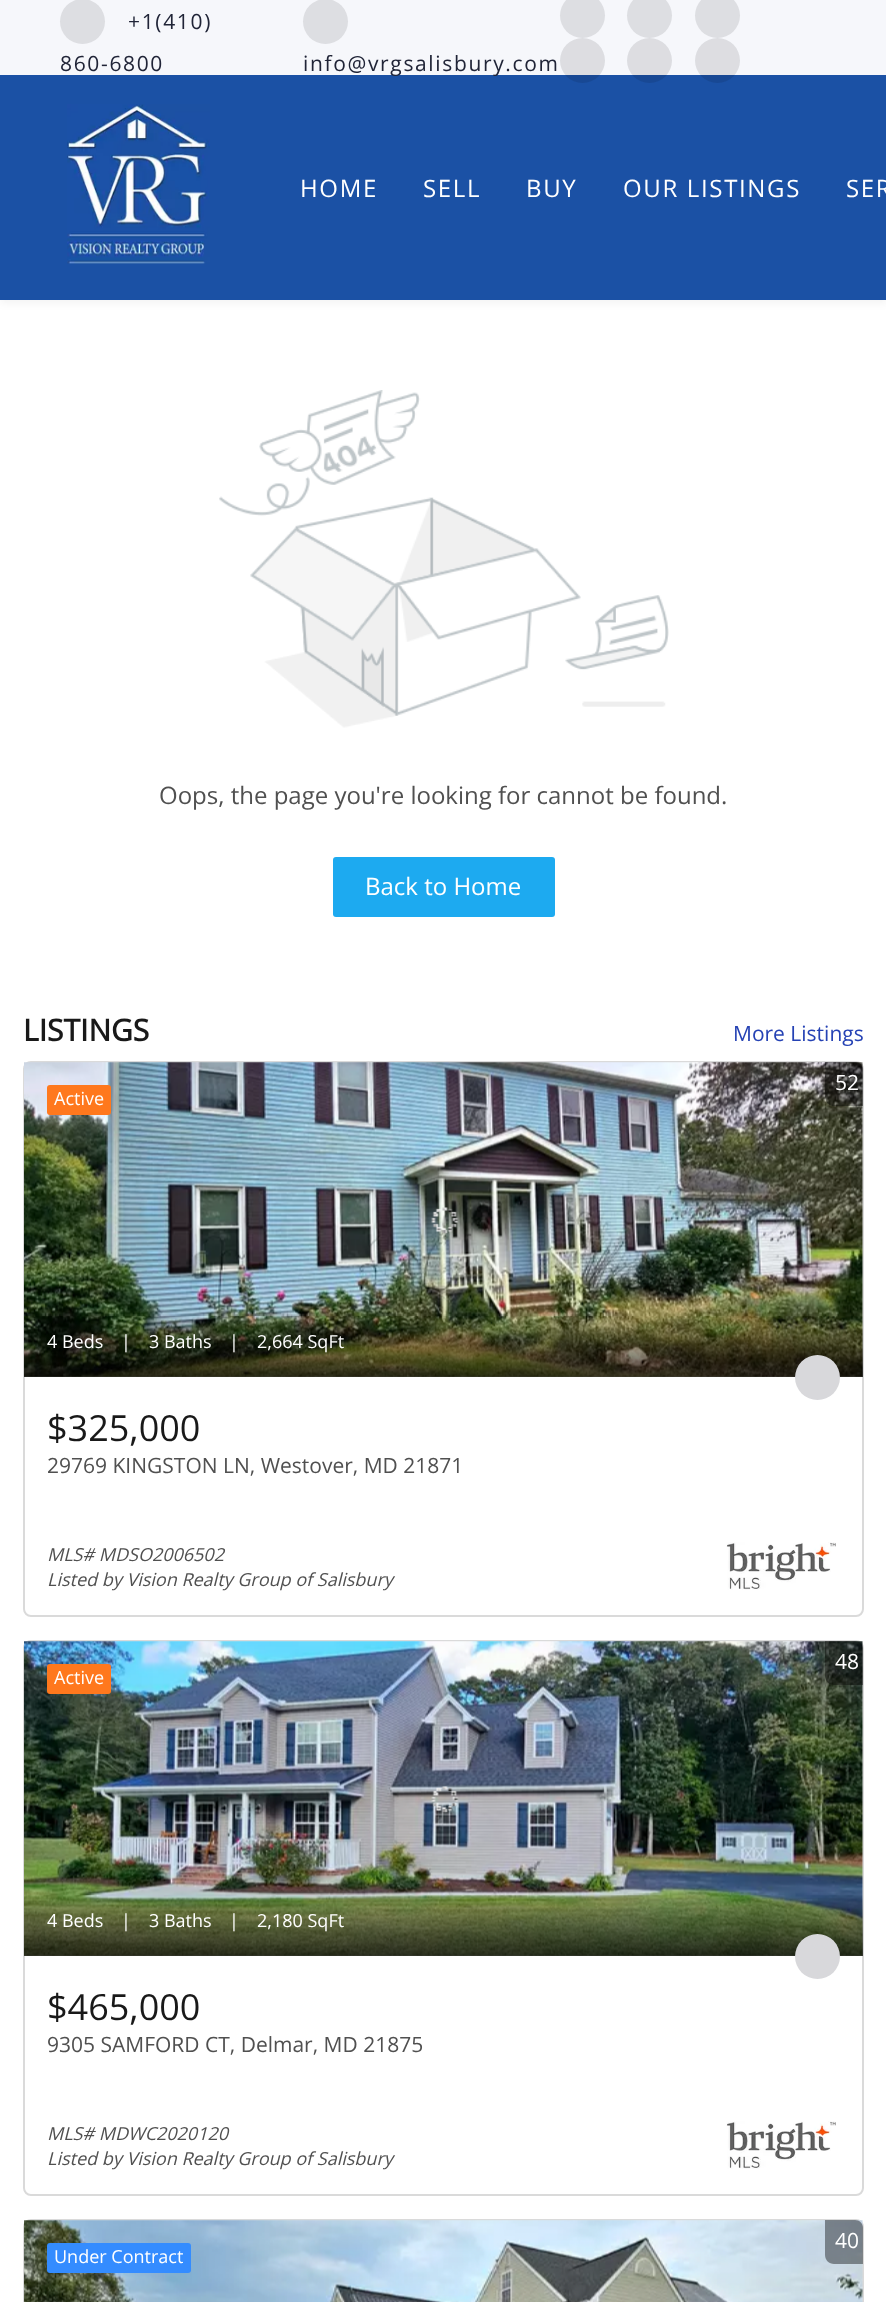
<svg xmlns="http://www.w3.org/2000/svg" width="886" height="2302" viewBox="0 0 886 2302">
  <defs>
    <linearGradient id="g1" gradientUnits="userSpaceOnUse" x1="443" y1="1317" x2="443" y2="1377"><stop offset="0" stop-color="#000" stop-opacity="0"/><stop offset="1" stop-color="#000" stop-opacity="0.7"/></linearGradient>
    <linearGradient id="g2" gradientUnits="userSpaceOnUse" x1="443" y1="1896" x2="443" y2="1956"><stop offset="0" stop-color="#000" stop-opacity="0"/><stop offset="1" stop-color="#000" stop-opacity="0.7"/></linearGradient>
  </defs>
  <rect width="100%" height="100%" fill="#fff"/>
  <path d="M0 3h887v300H0z" fill="#0000000d" filter="blur(4px)"/>
  <path d="M0 0h886v75H0z" fill="#f6f7fb"/>
  <circle cx="82.5" cy="21.5" r="22.5" fill="#dddee2"/>
  <circle cx="325.5" cy="21.5" r="22.5" fill="#dddee2"/>
  <circle cx="582.5" cy="15.5" r="22.5" fill="#dddee2"/>
  <circle cx="649.5" cy="15.5" r="22.5" fill="#dddee2"/>
  <circle cx="717.5" cy="15.5" r="22.5" fill="#dddee2"/>
  <path d="M0 75h886v225H0z" fill="#1b51a5"/>
  <circle cx="582.5" cy="60.5" r="22.5" fill="#0000001a"/>
  <circle cx="649.5" cy="60.5" r="22.5" fill="#0000001a"/>
  <circle cx="717.5" cy="60.5" r="22.5" fill="#0000001a"/>
  <image x="67" y="104" width="143" height="160" href="img/1.png"/>
  <image x="219" y="390" width="450" height="338" href="img/2.png"/>
  <rect x="333" y="857" width="222" height="60" rx="3" fill="#1daaf0"/>
  <rect x="24" y="1062" width="839" height="554" rx="7" fill="none" stroke="#dadada" stroke-width="2"/>
  <image x="24" y="1062" width="839" height="315" href="img/3.png"/>
  <image x="431" y="1207" width="28" height="27" href="img/4.png"/>
  <path d="M825 1062H855C859.5 1062 863 1065.5 863 1070V1106H834C829 1106 825 1102 825 1097Z" fill="#00000066"/>
  <path d="M24 1319h839v58H24z" fill="url(#g1)"/>
  <rect x="47" y="1085" width="64" height="30" rx="3" fill="#ff781d"/>
  <circle cx="817.5" cy="1377.5" r="22.5" fill="#d8d8db"/>
  <image x="726" y="1542" width="110" height="48" href="img/5.png"/>
  <rect x="24" y="1641" width="839" height="554" rx="7" fill="none" stroke="#dadada" stroke-width="2"/>
  <image x="24" y="1641" width="839" height="315" href="img/6.png"/>
  <image x="431" y="1786" width="28" height="27" href="img/7.png"/>
  <path d="M825 1641H855C859.5 1641 863 1644.5 863 1649V1685H834C829 1685 825 1681 825 1676Z" fill="#00000066"/>
  <path d="M24 1898h839v58H24z" fill="url(#g2)"/>
  <rect x="47" y="1664" width="64" height="30" rx="3" fill="#ff781d"/>
  <circle cx="817.5" cy="1956.5" r="22.5" fill="#d8d8db"/>
  <image x="726" y="2121" width="110" height="48" href="img/5.png"/>
  <rect x="24" y="2220" width="839" height="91" rx="7" fill="none" stroke="#dadada" stroke-width="2"/>
  <image x="24" y="2220" width="839" height="82" href="img/8.png"/>
  <path d="M825 2220H855C859.5 2220 863 2223.5 863 2228V2264H834C829 2264 825 2260 825 2255Z" fill="#00000066"/>
  <rect x="47" y="2243" width="144" height="30" rx="3" fill="#348cff"/>
  <g font-family="Open Sans" font-size="21" letter-spacing="1.65" fill="#202437">
    <text x="128" y="29">+1(410)</text>
    <text x="60" y="71">860-6800</text>
    <text x="303" y="71">info@vrgsalisbury.com</text>
  </g>
  <g font-family="Open Sans" font-size="24" letter-spacing="1.65" fill="#fff">
    <text x="300" y="197">HOME</text>
    <text x="423" y="197">SELL</text>
    <text x="526" y="197">BUY</text>
    <text x="623" y="197">OUR LISTINGS</text>
    <text x="846" y="197">SER</text>
  </g>
  <text x="159" y="804" font-family="Open Sans" font-size="24" fill="#505050">Oops, the page you're looking for cannot be found.</text>
  <text x="365" y="895" font-family="Open Sans" font-size="24" fill="#fff">Back to Home</text>
  <text x="23" y="1041" font-family="Open Sans" font-size="30" font-weight="bold" fill="#191919">LISTINGS</text>
  <text x="733" y="1041" font-family="Open Sans" font-size="21" fill="#2542b4">More Listings</text>
  <text x="835" y="1090" font-family="Open Sans" font-size="21" fill="#fff">52</text>
  <g font-family="Open Sans" font-size="18" fill="#fff">
    <text x="47" y="1348">4 Beds</text>
    <text x="121" y="1348">|</text>
    <text x="149" y="1348">3 Baths</text>
    <text x="229" y="1348">|</text>
    <text x="257" y="1348">2,664 SqFt</text>
    <text x="54" y="1105">Active</text>
  </g>
  <text x="47" y="1441" font-family="Open Sans" font-size="36" fill="#191919">$325,000</text>
  <text x="47" y="1473" font-family="Open Sans" font-size="21" fill="#505050">29769 KINGSTON LN, Westover, MD 21871</text>
  <g font-family="Open Sans" font-size="18" font-style="italic" fill="#505050">
    <text x="47" y="1561">MLS# MDSO2006502</text>
    <text x="47" y="1586">Listed by Vision Realty Group of Salisbury</text>
  </g>
  <text x="835" y="1669" font-family="Open Sans" font-size="21" fill="#fff">48</text>
  <g font-family="Open Sans" font-size="18" fill="#fff">
    <text x="47" y="1927">4 Beds</text>
    <text x="121" y="1927">|</text>
    <text x="149" y="1927">3 Baths</text>
    <text x="229" y="1927">|</text>
    <text x="257" y="1927">2,180 SqFt</text>
    <text x="54" y="1684">Active</text>
  </g>
  <text x="47" y="2020" font-family="Open Sans" font-size="36" fill="#191919">$465,000</text>
  <text x="47" y="2052" font-family="Open Sans" font-size="21" fill="#505050">9305 SAMFORD CT, Delmar, MD 21875</text>
  <g font-family="Open Sans" font-size="18" font-style="italic" fill="#505050">
    <text x="47" y="2140">MLS# MDWC2020120</text>
    <text x="47" y="2165">Listed by Vision Realty Group of Salisbury</text>
  </g>
  <text x="835" y="2248" font-family="Open Sans" font-size="21" fill="#fff">40</text>
  <text x="54" y="2263" font-family="Open Sans" font-size="18" fill="#fff">Under Contract</text>
</svg>
